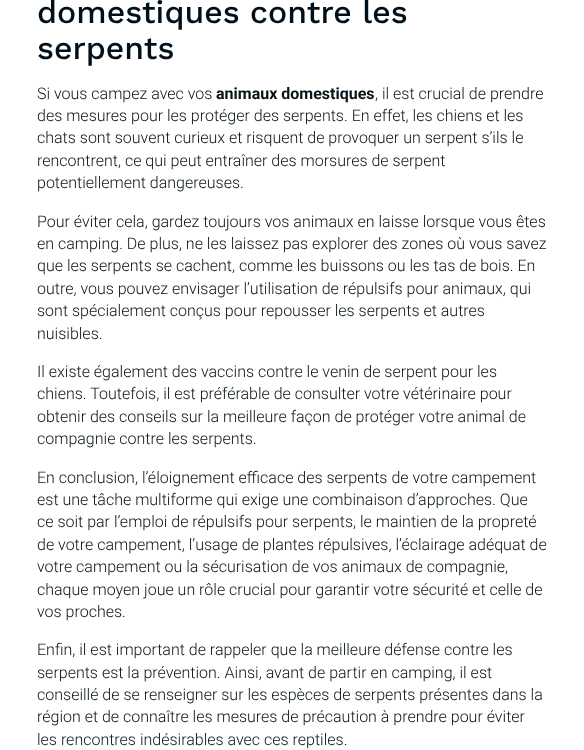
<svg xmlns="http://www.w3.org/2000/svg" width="584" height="750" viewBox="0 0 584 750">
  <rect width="100%" height="100%" fill="#fff"/>
  <g font-family="Work Sans" font-size="32" font-weight="500" fill="#00101a">
    <text x="37" y="23">domestiques contre les</text>
    <text x="37" y="59">serpents</text>
  </g>
  <text x="37" y="99" font-family="Roboto" font-size="16" font-weight="300" fill="#081319">Si vous campez avec vos</text>
  <text x="216" y="99" font-family="Roboto" font-size="16" font-weight="bold" fill="#081319">animaux domestiques</text>
  <g font-family="Roboto" font-size="16" font-weight="300" fill="#081319">
    <text x="375" y="99">, il est crucial de prendre</text>
    <text x="37" y="121">des mesures pour les protéger des serpents. En effet, les chiens et les</text>
    <text x="37" y="143">chats sont souvent curieux et risquent de provoquer un serpent s’ils le</text>
    <text x="37" y="166">rencontrent, ce qui peut entraîner des morsures de serpent</text>
    <text x="37" y="188">potentiellement dangereuses.</text>
    <text x="37" y="227">Pour éviter cela, gardez toujours vos animaux en laisse lorsque vous êtes</text>
    <text x="37" y="249">en camping. De plus, ne les laissez pas explorer des zones où vous savez</text>
    <text x="37" y="271">que les serpents se cachent, comme les buissons ou les tas de bois. En</text>
    <text x="37" y="294">outre, vous pouvez envisager l’utilisation de répulsifs pour animaux, qui</text>
    <text x="37" y="316">sont spécialement conçus pour repousser les serpents et autres</text>
    <text x="37" y="339">nuisibles.</text>
    <text x="37" y="377">Il existe également des vaccins contre le venin de serpent pour les</text>
    <text x="37" y="399">chiens. Toutefois, il est préférable de consulter votre vétérinaire pour</text>
    <text x="37" y="422">obtenir des conseils sur la meilleure façon de protéger votre animal de</text>
    <text x="37" y="444">compagnie contre les serpents.</text>
    <text x="37" y="483">En conclusion, l’éloignement efficace des serpents de votre campement</text>
    <text x="37" y="505">est une tâche multiforme qui exige une combinaison d’approches. Que</text>
    <text x="37" y="527">ce soit par l’emploi de répulsifs pour serpents, le maintien de la propreté</text>
    <text x="37" y="550">de votre campement, l’usage de plantes répulsives, l’éclairage adéquat de</text>
    <text x="37" y="572">votre campement ou la sécurisation de vos animaux de compagnie,</text>
    <text x="37" y="595">chaque moyen joue un rôle crucial pour garantir votre sécurité et celle de</text>
    <text x="37" y="617">vos proches.</text>
    <text x="37" y="655">Enfin, il est important de rappeler que la meilleure défense contre les</text>
    <text x="37" y="678">serpents est la prévention. Ainsi, avant de partir en camping, il est</text>
    <text x="37" y="700">conseillé de se renseigner sur les espèces de serpents présentes dans la</text>
    <text x="37" y="722">région et de connaître les mesures de précaution à prendre pour éviter</text>
    <text x="37" y="745">les rencontres indésirables avec ces reptiles.</text>
  </g>
</svg>
